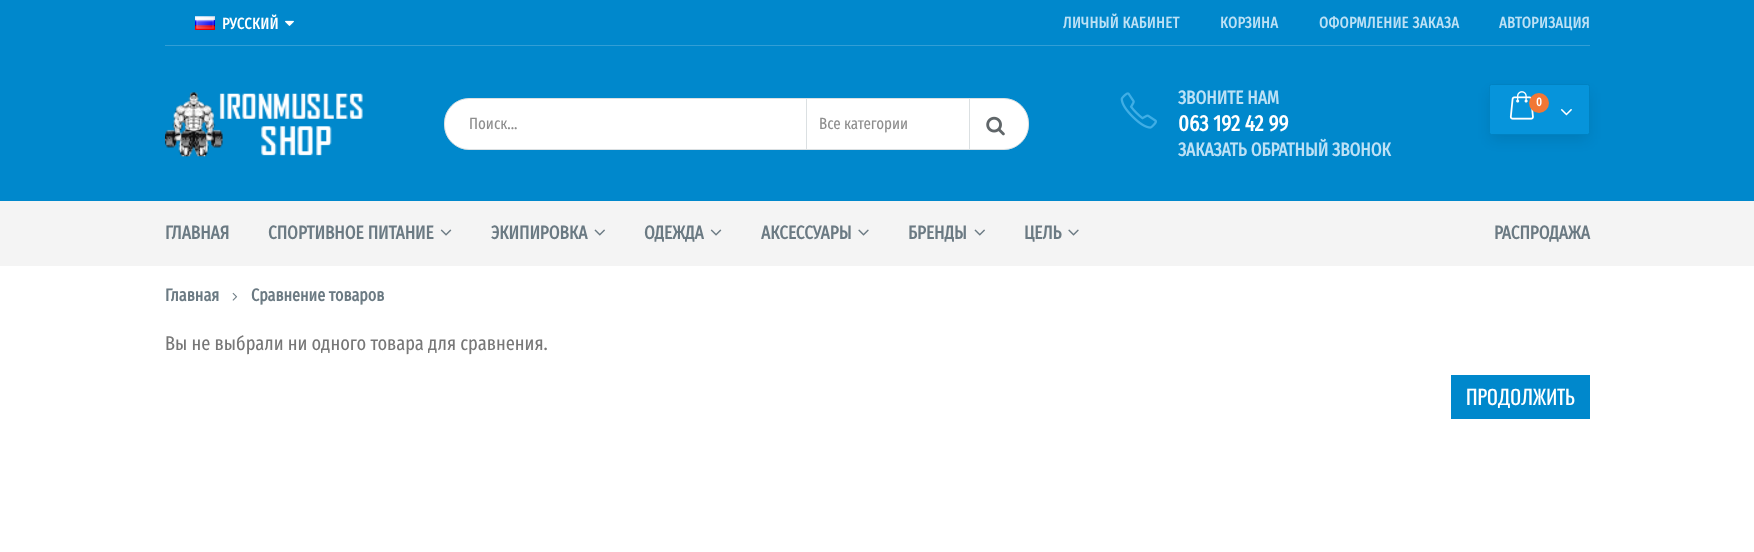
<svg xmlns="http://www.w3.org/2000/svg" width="1754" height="552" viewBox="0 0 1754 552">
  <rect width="100%" height="100%" fill="#fff"/>
  <path d="M0 0h1754v201H0z" fill="#08c"/>
  <image x="195" y="16" width="20" height="14" href="img/1.png"/>
  <image x="285" y="20" width="9" height="6" href="img/2.png"/>
  <path d="M165 45h1425v1H165z" fill="#329ed5"/>
  <image x="165" y="92" width="198" height="65" href="img/3.png"/>
  <rect x="444.5" y="98.5" width="584" height="51" rx="24.5" fill="#fff" stroke="#dbe0e2"/>
  <path d="M806 99h1v50H806z" fill="#dbe0e2"/>
  <path d="M969 99h1v50H969z" fill="#dbe0e2"/>
  <image x="986" y="116" width="19" height="20" href="img/4.png"/>
  <image x="1120" y="92" width="37" height="37" href="img/5.png"/>
  <path d="M1491 93h97v46H1491z" fill="#0000001a" filter="blur(7px)"/>
  <rect x="1489.5" y="84.5" width="100" height="50" rx="2" fill="#0694db" stroke="#0082c2"/>
  <image x="1509" y="91" width="25" height="29" href="img/6.png"/>
  <circle cx="1539" cy="103" r="10" fill="#f17734"/>
  <image x="1560" y="108" width="12" height="8" href="img/7.png"/>
  <path d="M0 201h1754v65H0z" fill="#f4f4f4"/>
  <image x="440" y="229" width="12" height="7" href="img/8.png"/>
  <image x="594" y="229" width="11" height="7" href="img/9.png"/>
  <image x="710" y="229" width="12" height="7" href="img/8.png"/>
  <image x="858" y="229" width="11" height="7" href="img/10.png"/>
  <image x="974" y="229" width="11" height="7" href="img/9.png"/>
  <image x="1068" y="229" width="11" height="7" href="img/10.png"/>
  <image x="232" y="292" width="6" height="9" href="img/11.png"/>
  <path d="M1451 375h139v44H1451z" fill="#08c"/>
  <text x="222" y="29" font-family="Fira Sans Extra Condensed" font-size="15.75" font-weight="bold" letter-spacing="0.4" fill="#fff">РУССКИЙ</text>
  <g font-family="Fira Sans Extra Condensed" font-size="15.75" font-weight="bold" letter-spacing="0.4" fill="#bde1f5">
    <text x="1063" y="28">ЛИЧНЫЙ КАБИНЕТ</text>
    <text x="1220" y="28">КОРЗИНА</text>
    <text x="1319" y="28">ОФОРМЛЕНИЕ ЗАКАЗА</text>
    <text x="1499" y="28">АВТОРИЗАЦИЯ</text>
  </g>
  <g font-family="Fira Sans Extra Condensed" font-size="16.25" fill="#8d8d8d">
    <text x="469" y="129">Поиск...</text>
    <text x="819" y="129">Все категории</text>
  </g>
  <text x="1178" y="104" font-family="Fira Sans Extra Condensed" font-size="18.75" font-weight="bold" fill="#bde1f5">ЗВОНИТЕ НАМ</text>
  <text x="1178" y="131" font-family="Fira Sans Extra Condensed" font-size="22.5" font-weight="bold" fill="#fff">063 192 42 99</text>
  <text x="1178" y="156" font-family="Fira Sans Extra Condensed" font-size="18.75" font-weight="bold" fill="#bde1f5">ЗАКАЗАТЬ ОБРАТНЫЙ ЗВОНОК</text>
  <text x="1536" y="106" font-family="Fira Sans Extra Condensed" font-size="12" font-weight="bold" fill="#fff">0</text>
  <g font-family="Fira Sans Extra Condensed" font-size="18.75" font-weight="bold" fill="#6b7a83">
    <text x="165" y="239">ГЛАВНАЯ</text>
    <text x="268" y="239">СПОРТИВНОЕ ПИТАНИЕ</text>
    <text x="491" y="239">ЭКИПИРОВКА</text>
    <text x="644" y="239">ОДЕЖДА</text>
    <text x="761" y="239">АКСЕССУАРЫ</text>
    <text x="908" y="239">БРЕНДЫ</text>
    <text x="1024" y="239">ЦЕЛЬ</text>
    <text x="1494" y="239">РАСПРОДАЖА</text>
  </g>
  <g font-family="Fira Sans Extra Condensed" font-size="17.5" font-weight="bold" fill="#6b7a83">
    <text x="165" y="301">Главная</text>
    <text x="251" y="301">Сравнение товаров</text>
  </g>
  <text x="165" y="350" font-family="Fira Sans Extra Condensed" font-size="20" fill="#777">Вы не выбрали ни одного товара для сравнения.</text>
  <text x="1466" y="405" font-family="Oswald" font-size="20" fill="#fff">ПРОДОЛЖИТЬ</text>
</svg>
